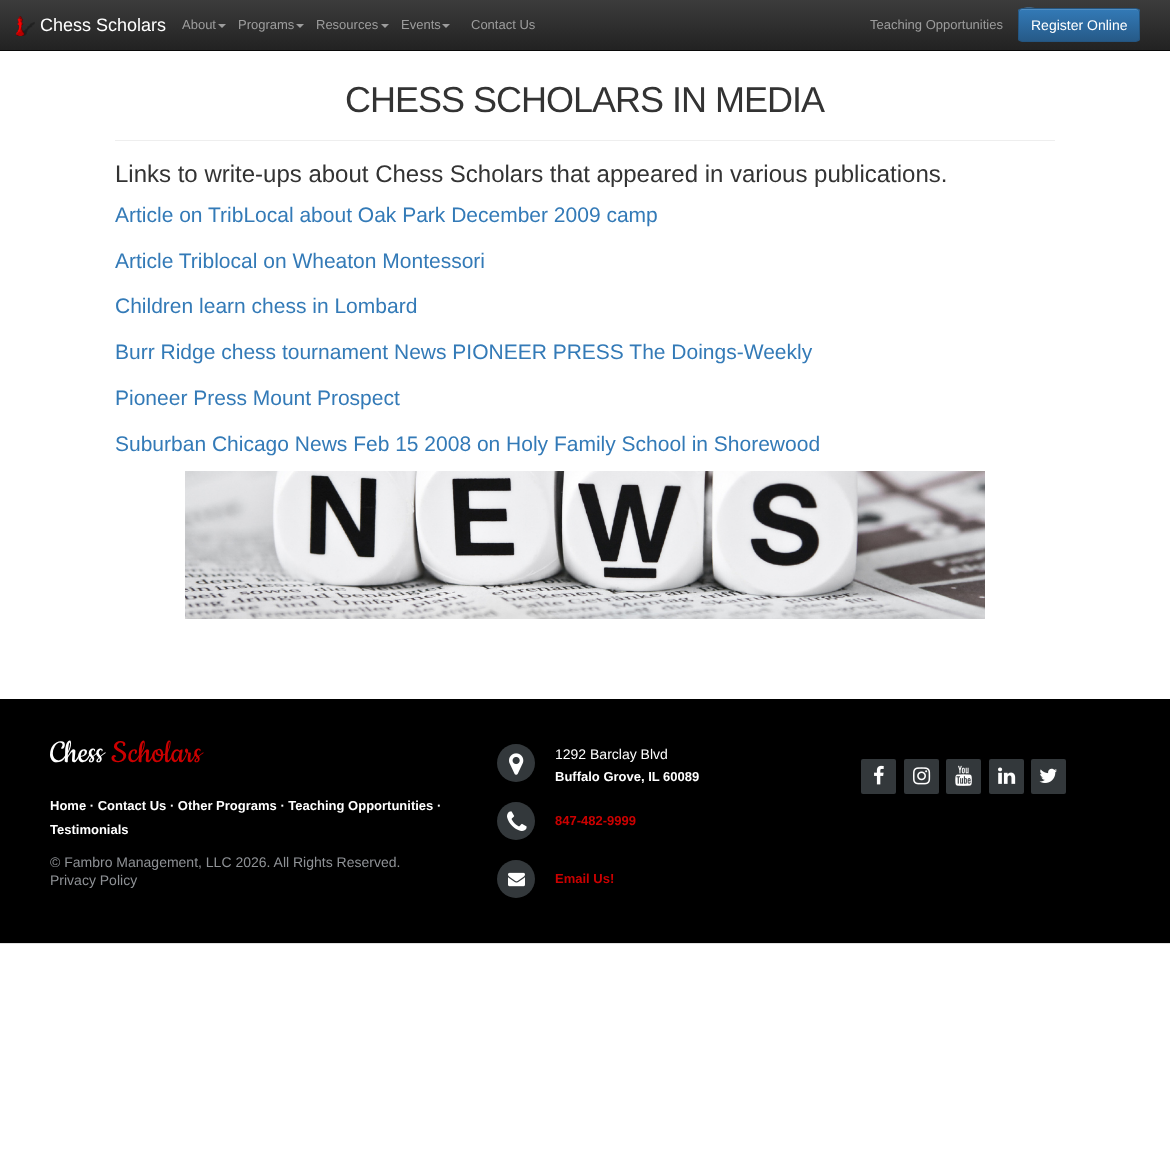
<svg xmlns="http://www.w3.org/2000/svg" width="1170" height="1170" viewBox="0 0 1170 1170">
  <defs>
    <linearGradient id="g1" gradientUnits="userSpaceOnUse" x1="585" y1="0" x2="585" y2="50"><stop offset="0" stop-color="#3c3c3c"/><stop offset="1" stop-color="#222"/></linearGradient>
    <clipPath id="clip1"><rect x="1018" y="8" width="122" height="34" rx="4"/></clipPath>
    <linearGradient id="g2" gradientUnits="userSpaceOnUse" x1="1079" y1="9" x2="1079" y2="41"><stop offset="0" stop-color="#337ab7"/><stop offset="1" stop-color="#265a88"/></linearGradient>
  </defs>
  <rect width="100%" height="100%" fill="#fff"/>
  <path d="M0 0h1170v50H0z" fill="url(#g1)"/>
  <path d="M0 50h1170v1H0z" fill="#090909"/>
  <image x="15" y="16" width="20" height="20" href="img/1.png"/>
  <path d="M218 24H226L222 28Z" fill="#9d9d9d"/>
  <path d="M296 24H304L300 28Z" fill="#9d9d9d"/>
  <path d="M381 24H389L385 28Z" fill="#9d9d9d"/>
  <path d="M442 24H450L446 28Z" fill="#9d9d9d"/>
  <g clip-path="url(#clip1)">
    <path d="M1018 9h122v32H1018z" fill="url(#g2)"/>
  </g>
  <path d="M1022 10H1136C1138 10 1139 11 1139 13C1139 11 1138 9 1136 9H1041C1040 9 1019 4 1019 13C1019 11 1020 10 1022 10Z" fill="#528ec1"/>
  <rect x="1018.5" y="8.5" width="121" height="33" rx="3.5" fill="none" stroke="#245580"/>
  <path d="M115 140h940v1H115z" fill="#eee"/>
  <image x="185" y="471" width="800" height="148" href="img/2.png"/>
  <path d="M0 700h1170v244H0z" fill="#0000001f" filter="blur(0.5px)"/>
  <path d="M0 699h1170v244H0z" fill="#000"/>
  <circle cx="516" cy="763" r="19" fill="#33383b"/>
  <image x="509" y="753" width="15" height="22" href="img/3.png"/>
  <circle cx="516" cy="821" r="19" fill="#33383b"/>
  <image x="507" y="811" width="20" height="20" href="img/4.png"/>
  <circle cx="516" cy="879" r="19" fill="#33383b"/>
  <image x="508" y="872" width="17" height="15" href="img/5.png"/>
  <rect x="861" y="759" width="35" height="35" rx="2" fill="#33383b"/>
  <image x="874" y="765" width="10" height="20" href="img/6.png"/>
  <rect x="904" y="759" width="35" height="35" rx="2" fill="#33383b"/>
  <image x="913" y="767" width="18" height="18" href="img/7.png"/>
  <rect x="946" y="759" width="35" height="35" rx="2" fill="#33383b"/>
  <image x="955" y="765" width="17" height="21" href="img/8.png"/>
  <rect x="989" y="759" width="35" height="35" rx="2" fill="#33383b"/>
  <image x="998" y="767" width="18" height="17" href="img/9.png"/>
  <rect x="1031" y="759" width="35" height="35" rx="2" fill="#33383b"/>
  <image x="1039" y="768" width="18" height="15" href="img/10.png"/>
  <text x="40" y="31" font-family="Liberation Sans" font-size="18" fill="#fff">Chess Scholars</text>
  <g font-family="Liberation Sans" font-size="13" fill="#9d9d9d">
    <text x="182" y="29">About</text>
    <text x="238" y="29">Programs</text>
    <text x="316" y="29">Resources</text>
    <text x="401" y="29">Events</text>
    <text x="471" y="29">Contact Us</text>
    <text x="870" y="29">Teaching Opportunities</text>
  </g>
  <text x="1031" y="30" font-family="Liberation Sans" font-size="14" fill="#fff">Register Online</text>
  <text x="345" y="112" font-family="Liberation Sans" font-size="36" letter-spacing="-1" fill="#333">CHESS SCHOLARS IN MEDIA</text>
  <text x="115" y="182" font-family="Liberation Sans" font-size="24" fill="#333">Links to write-ups about Chess Scholars that appeared in various publications.</text>
  <g font-family="Liberation Sans" font-size="21" fill="#337ab7">
    <text x="115" y="222">Article on TribLocal about Oak Park December 2009 camp</text>
    <text x="115" y="268">Article Triblocal on Wheaton Montessori</text>
    <text x="115" y="313">Children learn chess in Lombard</text>
    <text x="115" y="359">Burr Ridge chess tournament News PIONEER PRESS The Doings-Weekly</text>
    <text x="115" y="405">Pioneer Press Mount Prospect</text>
    <text x="115" y="451">Suburban Chicago News Feb 15 2008 on Holy Family School in Shorewood</text>
  </g>
  <text x="50" y="762" font-family="Cookie" font-size="36" fill="#fff">Chess</text>
  <text x="111" y="762" font-family="Cookie" font-size="36" fill="#c00">Scholars</text>
  <g font-family="Liberation Sans" font-size="13" font-weight="bold" fill="#fff">
    <text x="50" y="810">Home · Contact Us · Other Programs · Teaching Opportunities ·</text>
    <text x="50" y="834">Testimonials</text>
  </g>
  <g font-family="Liberation Sans" font-size="14" fill="#8f9296">
    <text x="50" y="867">© Fambro Management, LLC 2026. All Rights Reserved.</text>
    <text x="50" y="885">Privacy Policy</text>
  </g>
  <text x="555" y="759" font-family="Liberation Sans" font-size="14" fill="#fff">1292 Barclay Blvd</text>
  <text x="555" y="781" font-family="Liberation Sans" font-size="13" font-weight="bold" fill="#fff">Buffalo Grove, IL 60089</text>
  <g font-family="Liberation Sans" font-size="13" font-weight="bold" fill="#c00">
    <text x="555" y="825">847-482-9999</text>
    <text x="555" y="883">Email Us!</text>
  </g>
</svg>
